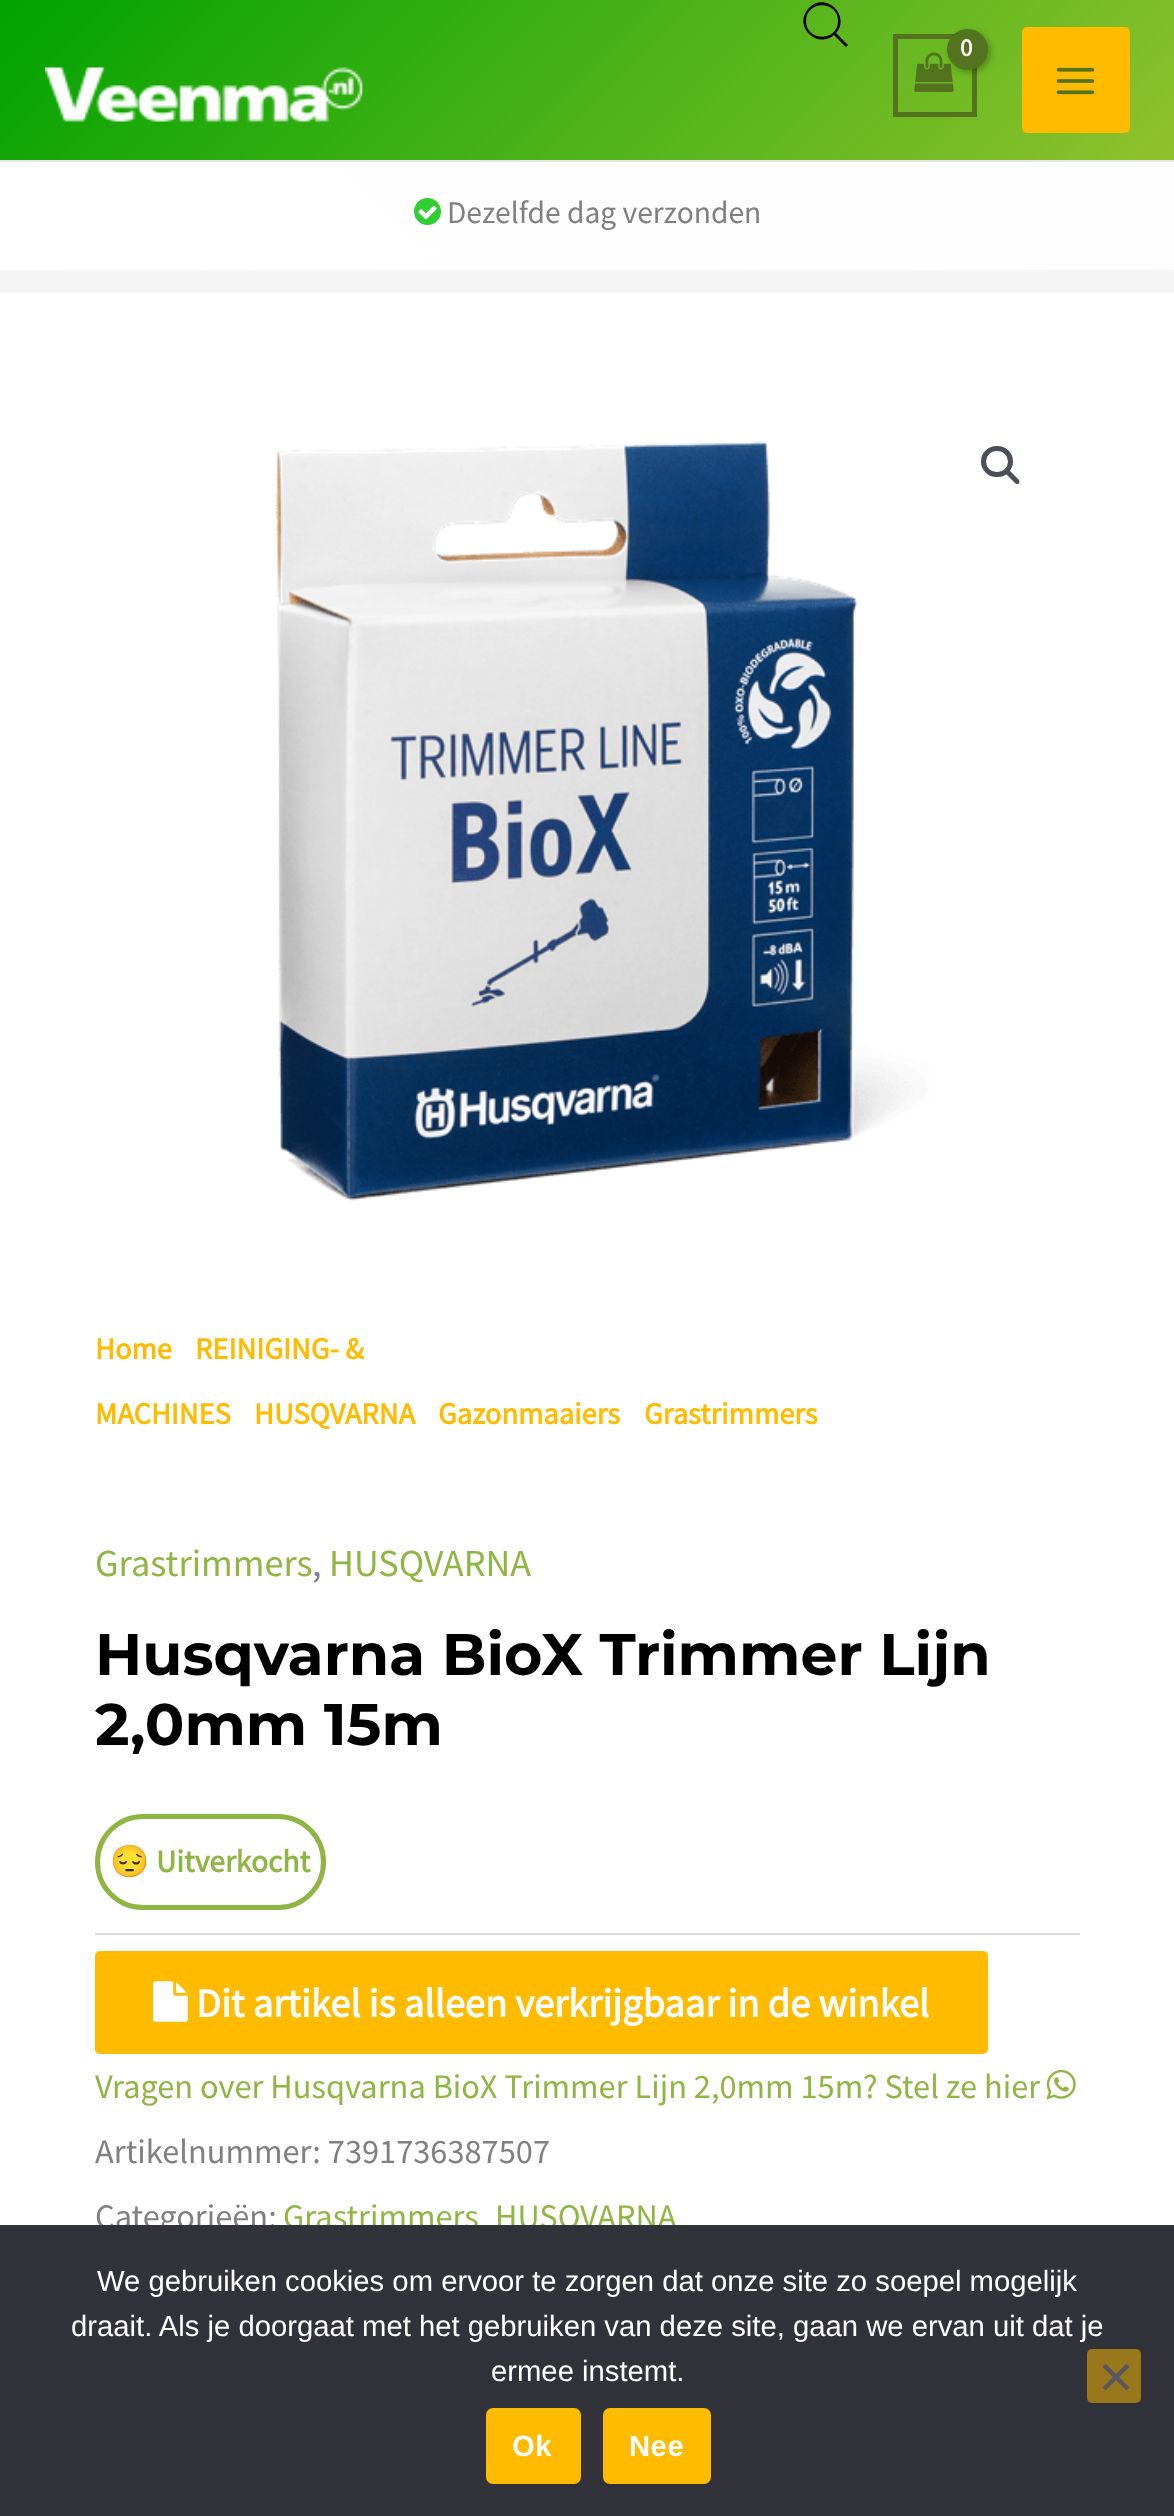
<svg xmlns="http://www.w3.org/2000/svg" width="1174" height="2516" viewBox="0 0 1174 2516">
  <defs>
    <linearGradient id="g1" gradientUnits="userSpaceOnUse" x1="254" y1="-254" x2="921" y2="413"><stop offset="0" stop-color="#00a300"/><stop offset="1" stop-color="#90c12e"/></linearGradient>
    <linearGradient id="g2" gradientUnits="userSpaceOnUse" x1="266" y1="536" x2="909" y2="-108"><stop offset="0" stop-color="#fff"/><stop offset="1" stop-color="#fdfdfd"/></linearGradient>
  </defs>
  <rect width="100%" height="100%" fill="#f5f5f5"/>
  <path d="M0 0h1174v160H0z" fill="url(#g1)"/>
  <path d="M0 160h1174v2H0z" fill="#e5e5e5"/>
  <path d="M848 45L836 33C851 16 826-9 809 8C792 25 817 50 834 35L846 47ZM806 21C806 0 838 0 838 21C838 42 806 42 806 21Z" fill="#000"/>
  <path d="M895.5 36.5h79v78H895.5z" fill="none" stroke="#54731e" stroke-width="5"/>
  <image x="914" y="52" width="40" height="40" href="img/1.png"/>
  <rect x="950" y="32" width="40" height="40" rx="20" fill="#0000004d" filter="blur(3.5px)"/>
  <circle cx="967.5" cy="49.5" r="20.5" fill="#54731e"/>
  <rect x="1024.5" y="29.5" width="103" height="101" rx="2.5" fill="#fb0" stroke="#fb0" stroke-width="5"/>
  <image x="1056" y="67" width="39" height="28" href="img/2.png"/>
  <image x="45" y="67" width="318" height="55" href="img/3.png"/>
  <path d="M0 293h1174v1932H0z" fill="#fff"/>
  <image x="275" y="441" width="654" height="760" href="img/4.png"/>
  <rect x="983.5" y="448.5" width="27" height="26" rx="13" fill="none" stroke="#4b4f58" stroke-width="5"/>
  <path d="M1006 470.5C1007 470 1008.5 470 1009.5 470.5L1019 480C1019.5 481 1019.5 482.5 1019 483.5C1018 484 1016.5 484 1015.5 483.5L1006 474C1005.5 473 1005.5 471.5 1006 470.5Z" fill="#4b4f58"/>
  <rect x="97.5" y="1816.5" width="226" height="91" rx="45.5" fill="none" stroke="#8fb643" stroke-width="5"/>
  <path d="M95 1933h985v2H95z" fill="#ddd"/>
  <rect x="97.5" y="1953.5" width="888" height="98" rx="2.5" fill="#fb0" stroke="#fb0" stroke-width="5"/>
  <image x="153" y="1981" width="35" height="41" href="img/5.png"/>
  <image x="1046" y="2069" width="30" height="31" href="img/6.png"/>
  <path d="M0 162h1174v108H0z" fill="url(#g2)"/>
  <image x="414" y="198" width="27" height="27" href="img/7.png"/>
  <text x="960" y="56" font-family="Source Sans Pro" font-size="25" font-weight="bold" letter-spacing="-1" fill="#fff">0</text>
  <g font-family="Source Sans Pro" font-size="30.5" font-weight="bold" fill="#fb0">
    <text x="95" y="1359">Home</text>
    <text x="195" y="1359">REINIGING- &amp;</text>
    <text x="95" y="1424">MACHINES</text>
    <text x="254" y="1424">HUSQVARNA</text>
    <text x="438" y="1424">Gazonmaaiers</text>
    <text x="644" y="1424">Grastrimmers</text>
  </g>
  <text x="95" y="1576" font-family="Source Sans Pro" font-size="38.25" fill="#8fb643">Grastrimmers</text>
  <text x="312" y="1576" font-family="Source Sans Pro" font-size="38.25" fill="#808080">,</text>
  <text x="329" y="1576" font-family="Source Sans Pro" font-size="38.25" fill="#8fb643">HUSQVARNA</text>
  <g font-family="Montserrat" font-size="58.5" font-weight="100" fill="#000">
    <text x="95" y="1675">Husqvarna BioX Trimmer Lijn</text>
    <text x="95" y="1745">2,0mm 15m</text>
  </g>
  <text x="110" y="1872" font-family="Noto Color Emoji" font-size="31.5" font-weight="bold" fill="#8fb643">😔</text>
  <text x="156" y="1872" font-family="Source Sans Pro" font-size="31.5" font-weight="bold" fill="#8fb643">Uitverkocht</text>
  <text x="196" y="2017" font-family="Source Sans Pro" font-size="40.5" font-weight="bold" fill="#fff">Dit artikel is alleen verkrijgbaar in de winkel</text>
  <text x="95" y="2098" font-family="Source Sans Pro" font-size="34.4" fill="#8fb643">Vragen over Husqvarna BioX Trimmer Lijn 2,0mm 15m? Stel ze hier</text>
  <g font-family="Source Sans Pro" font-size="34.4" fill="#808080">
    <text x="95" y="2163">Artikelnummer: 7391736387507</text>
    <text x="95" y="2228">Categorieën:</text>
  </g>
  <g font-family="Source Sans Pro" font-size="34.4" fill="#8fb643">
    <text x="283" y="2228">Grastrimmers</text>
    <text x="495" y="2228">HUSQVARNA</text>
  </g>
  <text x="447" y="223" font-family="Source Sans Pro" font-size="31.5" fill="#808080">Dezelfde dag verzonden</text>
  <path d="M0 2225h1174v291H0z" fill="#32323a"/>
  <g font-family="Liberation Sans" font-size="29.25" fill="#fff">
    <text x="97" y="2291">We gebruiken cookies om ervoor te zorgen dat onze site zo soepel mogelijk</text>
    <text x="71" y="2336">draait. Als je doorgaat met het gebruiken van deze site, gaan we ervan uit dat je</text>
    <text x="491" y="2381">ermee instemt.</text>
  </g>
  <rect x="1089.5" y="2351.5" width="49" height="49" rx="2.5" fill="#99771d" stroke="#99771d" stroke-width="5"/>
  <path d="M1126.5 2363.5L1129.5 2367L1105.5 2390.5L1102.5 2387.5Z" fill="#59595d"/>
  <path d="M1102.5 2367L1105.5 2363.5L1129.5 2387.5L1126.5 2390.5Z" fill="#59595d"/>
  <rect x="488.5" y="2410.5" width="90" height="71" rx="4.5" fill="#fb0" stroke="#fb0" stroke-width="5"/>
  <text x="512" y="2456" font-family="Liberation Sans" font-size="29.25" font-weight="bold" letter-spacing="0.5" fill="#fff">Ok</text>
  <rect x="605.5" y="2410.5" width="103" height="71" rx="4.5" fill="#fb0" stroke="#fb0" stroke-width="5"/>
  <text x="629" y="2456" font-family="Liberation Sans" font-size="29.25" font-weight="bold" letter-spacing="0.5" fill="#fff">Nee</text>
</svg>
